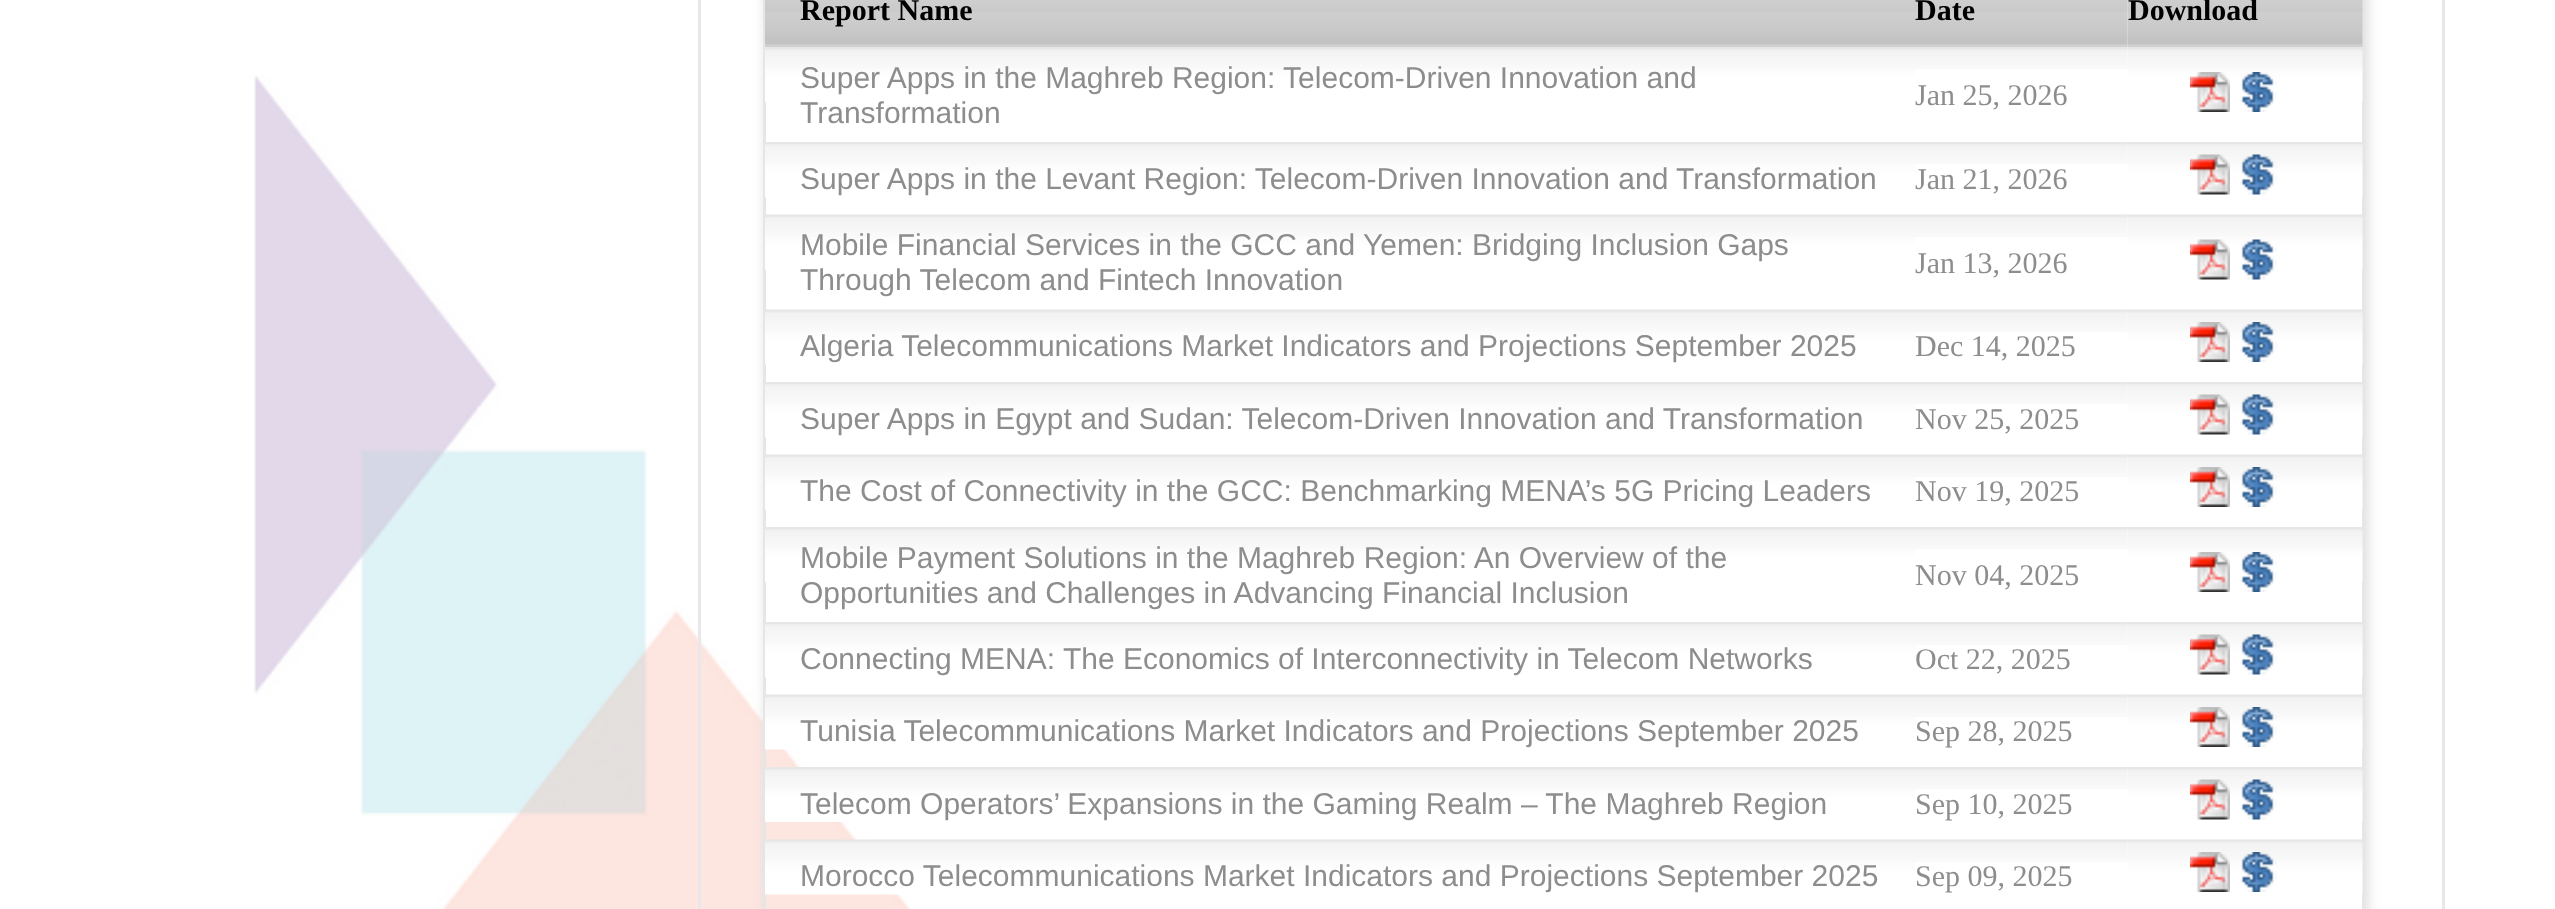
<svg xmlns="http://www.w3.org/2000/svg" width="2555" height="909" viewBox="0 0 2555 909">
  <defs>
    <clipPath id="clip1"><path d="M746 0H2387V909H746ZM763-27H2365V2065H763Z" clip-rule="evenodd"/></clipPath>
  </defs>
  <rect width="100%" height="100%" fill="#fff"/>
  <image x="254" y="75" width="656" height="834" href="img/1.png"/>
  <path d="M699.5 -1.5h1744v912H699.5z" fill="none" stroke="#e8e8ec" stroke-width="3"/>
  <g clip-path="url(#clip1)">
    <path d="M765 -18h1603v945H765z" fill="#ddd" filter="blur(6px)"/>
  </g>
  <path d="M764.5 -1.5h1599v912H764.5z" fill="none" stroke="#e6e6e6" stroke-width="3"/>
  <image x="765" y="0" width="1150" height="47" href="img/2.png"/>
  <image x="1915" y="0" width="213" height="47" href="img/3.png"/>
  <image x="2127" y="0" width="236" height="47" href="img/4.png"/>
  <image x="765" y="47" width="1150" height="55" href="img/5.png"/>
  <image x="1915" y="47" width="213" height="22" href="img/6.png"/>
  <image x="2127" y="47" width="236" height="55" href="img/7.png"/>
  <image x="2190" y="72" width="40" height="40" href="img/8.png"/>
  <image x="2240" y="72" width="37" height="40" href="img/9.png"/>
  <image x="765" y="142" width="1150" height="55" href="img/5.png"/>
  <image x="1915" y="142" width="213" height="22" href="img/6.png"/>
  <image x="2127" y="142" width="236" height="55" href="img/7.png"/>
  <image x="2190" y="154" width="40" height="41" href="img/10.png"/>
  <image x="2240" y="154" width="37" height="41" href="img/11.png"/>
  <image x="765" y="214" width="1150" height="56" href="img/12.png"/>
  <image x="1915" y="214" width="213" height="23" href="img/13.png"/>
  <image x="2127" y="214" width="236" height="56" href="img/14.png"/>
  <image x="2190" y="239" width="40" height="41" href="img/15.png"/>
  <image x="2240" y="239" width="37" height="41" href="img/16.png"/>
  <image x="765" y="309" width="1150" height="56" href="img/12.png"/>
  <image x="1915" y="309" width="213" height="23" href="img/13.png"/>
  <image x="2127" y="309" width="236" height="56" href="img/14.png"/>
  <image x="2190" y="322" width="40" height="40" href="img/17.png"/>
  <image x="2240" y="322" width="37" height="40" href="img/18.png"/>
  <image x="765" y="382" width="1150" height="55" href="img/5.png"/>
  <image x="1915" y="382" width="213" height="22" href="img/6.png"/>
  <image x="2127" y="382" width="236" height="55" href="img/7.png"/>
  <image x="2190" y="394" width="40" height="41" href="img/10.png"/>
  <image x="2240" y="394" width="37" height="41" href="img/11.png"/>
  <image x="765" y="454" width="1150" height="56" href="img/12.png"/>
  <image x="1915" y="454" width="213" height="23" href="img/13.png"/>
  <image x="2127" y="454" width="236" height="56" href="img/14.png"/>
  <image x="2190" y="467" width="40" height="40" href="img/17.png"/>
  <image x="2240" y="467" width="37" height="40" href="img/18.png"/>
  <image x="765" y="527" width="1150" height="55" href="img/5.png"/>
  <image x="1915" y="527" width="213" height="22" href="img/6.png"/>
  <image x="2127" y="527" width="236" height="55" href="img/7.png"/>
  <image x="2190" y="552" width="40" height="40" href="img/8.png"/>
  <image x="2240" y="552" width="37" height="40" href="img/9.png"/>
  <image x="765" y="622" width="1150" height="55" href="img/19.png"/>
  <image x="1915" y="622" width="213" height="23" href="img/20.png"/>
  <image x="2127" y="622" width="236" height="55" href="img/21.png"/>
  <image x="2190" y="634" width="40" height="41" href="img/22.png"/>
  <image x="2240" y="634" width="37" height="41" href="img/23.png"/>
  <image x="765" y="694" width="1150" height="56" href="img/24.png"/>
  <image x="1915" y="694" width="213" height="23" href="img/13.png"/>
  <image x="2127" y="694" width="236" height="56" href="img/14.png"/>
  <image x="2190" y="707" width="40" height="40" href="img/17.png"/>
  <image x="2240" y="707" width="37" height="40" href="img/18.png"/>
  <image x="765" y="767" width="1150" height="55" href="img/5.png"/>
  <image x="1915" y="767" width="213" height="22" href="img/6.png"/>
  <image x="2127" y="767" width="236" height="55" href="img/7.png"/>
  <image x="2190" y="779" width="40" height="41" href="img/10.png"/>
  <image x="2240" y="779" width="37" height="41" href="img/11.png"/>
  <image x="765" y="839" width="1150" height="56" href="img/25.png"/>
  <image x="1915" y="839" width="213" height="23" href="img/13.png"/>
  <image x="2127" y="839" width="236" height="56" href="img/14.png"/>
  <image x="2190" y="852" width="40" height="40" href="img/17.png"/>
  <image x="2240" y="852" width="37" height="40" href="img/18.png"/>
  <g font-family="Liberation Serif" font-size="30" font-weight="bold" fill="#000">
    <text x="800" y="20">Report Name</text>
    <text x="1915" y="20">Date</text>
    <text x="2128" y="20">Download</text>
  </g>
  <g font-family="Liberation Sans" font-size="30" fill="#8d8d8d">
    <text x="800" y="88">Super Apps in the Maghreb Region: Telecom-Driven Innovation and</text>
    <text x="800" y="123">Transformation</text>
  </g>
  <text x="1915" y="105" font-family="Liberation Serif" font-size="30" fill="#8d8d8d">Jan 25, 2026</text>
  <text x="800" y="189" font-family="Liberation Sans" font-size="30" fill="#8d8d8d">Super Apps in the Levant Region: Telecom-Driven Innovation and Transformation</text>
  <text x="1915" y="189" font-family="Liberation Serif" font-size="30" fill="#8d8d8d">Jan 21, 2026</text>
  <g font-family="Liberation Sans" font-size="30" fill="#8d8d8d">
    <text x="800" y="255">Mobile Financial Services in the GCC and Yemen: Bridging Inclusion Gaps</text>
    <text x="800" y="290">Through Telecom and Fintech Innovation</text>
  </g>
  <text x="1915" y="273" font-family="Liberation Serif" font-size="30" fill="#8d8d8d">Jan 13, 2026</text>
  <text x="800" y="356" font-family="Liberation Sans" font-size="30" fill="#8d8d8d">Algeria Telecommunications Market Indicators and Projections September 2025</text>
  <text x="1915" y="356" font-family="Liberation Serif" font-size="30" fill="#8d8d8d">Dec 14, 2025</text>
  <text x="800" y="429" font-family="Liberation Sans" font-size="30" fill="#8d8d8d">Super Apps in Egypt and Sudan: Telecom-Driven Innovation and Transformation</text>
  <text x="1915" y="429" font-family="Liberation Serif" font-size="30" fill="#8d8d8d">Nov 25, 2025</text>
  <text x="800" y="501" font-family="Liberation Sans" font-size="30" fill="#8d8d8d">The Cost of Connectivity in the GCC: Benchmarking MENA’s 5G Pricing Leaders</text>
  <text x="1915" y="501" font-family="Liberation Serif" font-size="30" fill="#8d8d8d">Nov 19, 2025</text>
  <g font-family="Liberation Sans" font-size="30" fill="#8d8d8d">
    <text x="800" y="568">Mobile Payment Solutions in the Maghreb Region: An Overview of the</text>
    <text x="800" y="603">Opportunities and Challenges in Advancing Financial Inclusion</text>
  </g>
  <text x="1915" y="585" font-family="Liberation Serif" font-size="30" fill="#8d8d8d">Nov 04, 2025</text>
  <text x="800" y="669" font-family="Liberation Sans" font-size="30" fill="#8d8d8d">Connecting MENA: The Economics of Interconnectivity in Telecom Networks</text>
  <text x="1915" y="669" font-family="Liberation Serif" font-size="30" fill="#8d8d8d">Oct 22, 2025</text>
  <text x="800" y="741" font-family="Liberation Sans" font-size="30" fill="#8d8d8d">Tunisia Telecommunications Market Indicators and Projections September 2025</text>
  <text x="1915" y="741" font-family="Liberation Serif" font-size="30" fill="#8d8d8d">Sep 28, 2025</text>
  <text x="800" y="814" font-family="Liberation Sans" font-size="30" fill="#8d8d8d">Telecom Operators’ Expansions in the Gaming Realm – The Maghreb Region</text>
  <text x="1915" y="814" font-family="Liberation Serif" font-size="30" fill="#8d8d8d">Sep 10, 2025</text>
  <text x="800" y="886" font-family="Liberation Sans" font-size="30" fill="#8d8d8d">Morocco Telecommunications Market Indicators and Projections September 2025</text>
  <text x="1915" y="886" font-family="Liberation Serif" font-size="30" fill="#8d8d8d">Sep 09, 2025</text>
</svg>
